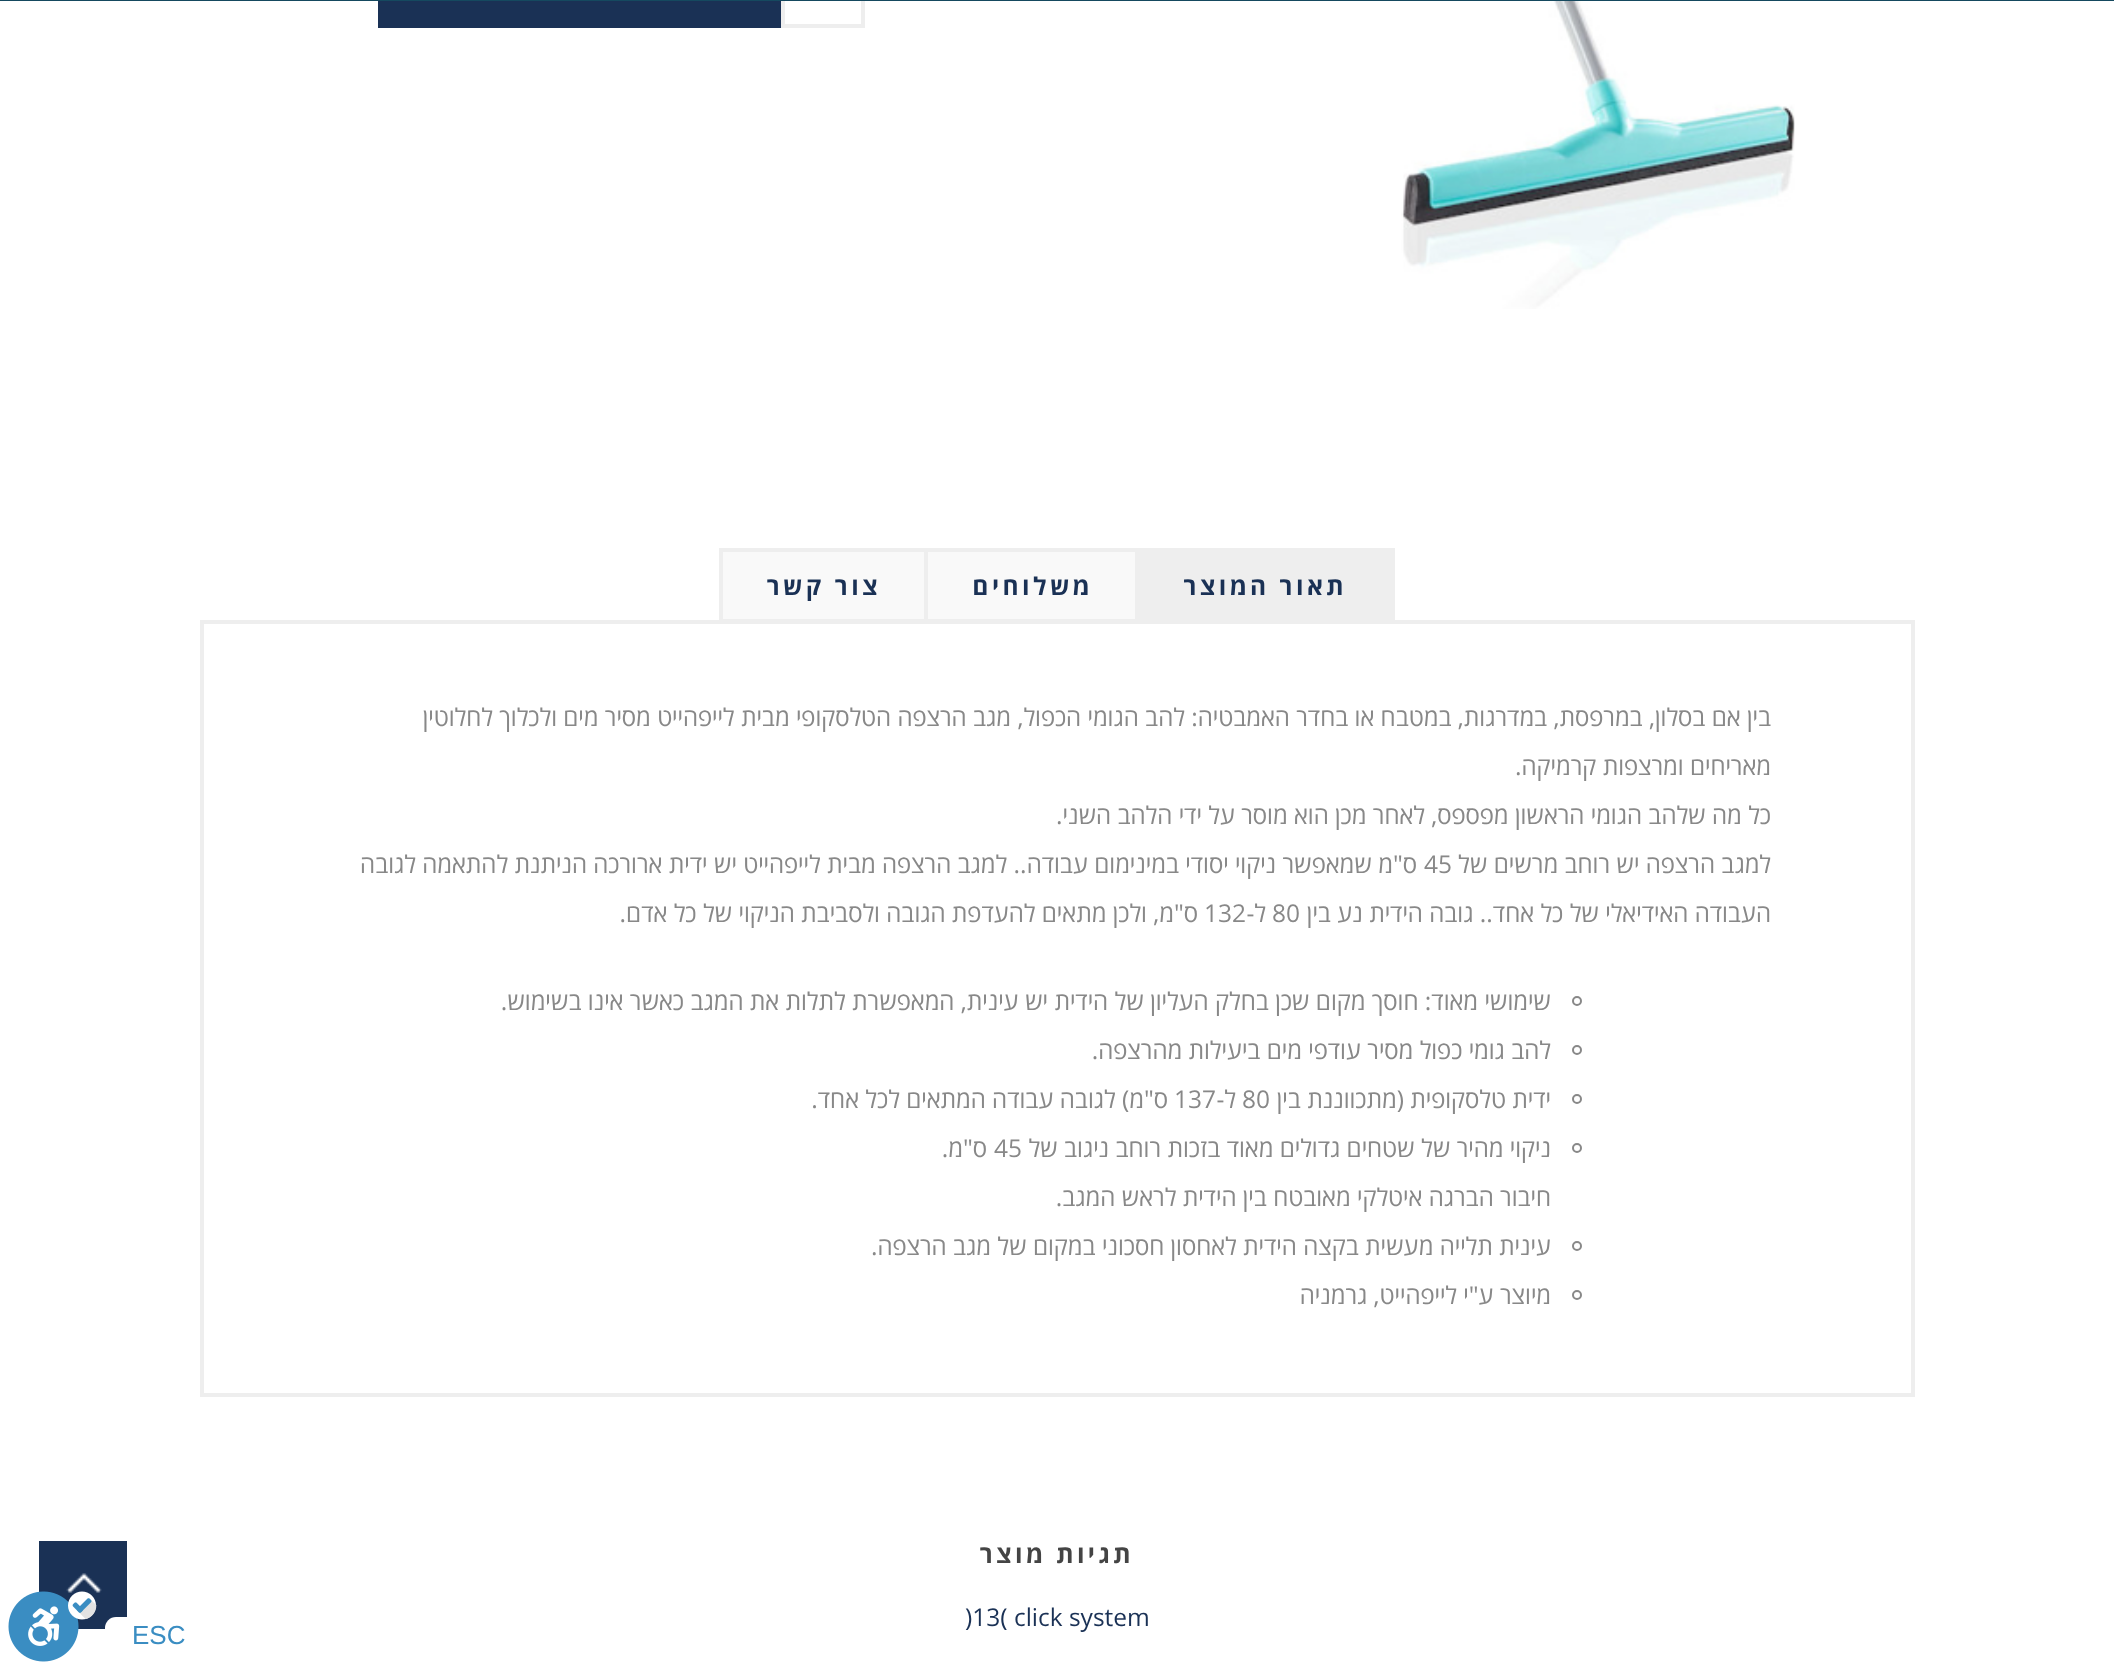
<svg xmlns="http://www.w3.org/2000/svg" width="2114" height="1667" viewBox="0 0 2114 1667">
  <rect width="100%" height="100%" fill="#fff"/>
  <image x="1401" y="1" width="394" height="308" href="img/1.png"/>
  <path d="M783 -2h80v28H783z" fill="none" stroke="#eee" stroke-width="4"/>
  <path d="M378 1h403v27H378z" fill="#1a3155"/>
  <path d="M1139 548h256v72H1139z" fill="#eee"/>
  <path d="M926 550h211v71H926z" fill="#f9f9f9" stroke="#eee" stroke-width="4"/>
  <path d="M721 550h205v71H721z" fill="#f9f9f9" stroke="#eee" stroke-width="4"/>
  <path d="M202 622h1711v773H202z" fill="none" stroke="#eee" stroke-width="4"/>
  <circle cx="1577" cy="1001" r="4" fill="none" stroke="#888" stroke-width="2"/>
  <circle cx="1577" cy="1050" r="4" fill="none" stroke="#888" stroke-width="2"/>
  <circle cx="1577" cy="1099" r="4" fill="none" stroke="#888" stroke-width="2"/>
  <circle cx="1577" cy="1148" r="4" fill="none" stroke="#888" stroke-width="2"/>
  <circle cx="1577" cy="1246" r="4" fill="none" stroke="#888" stroke-width="2"/>
  <circle cx="1577" cy="1295" r="4" fill="none" stroke="#888" stroke-width="2"/>
  <path d="M39 1541h88v88H39z" fill="#1a3155"/>
  <image x="66" y="1573" width="36" height="20" href="img/2.png"/>
  <path d="M0 0h2114v1H0z" fill="#15495f"/>
  <rect x="105" y="1617" width="110" height="37" rx="11" fill="#fff"/>
  <image x="8" y="1591" width="89" height="71" href="img/3.png"/>
  <g font-family="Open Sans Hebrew" font-size="24.5" font-weight="bold" letter-spacing="3.5" direction="rtl" fill="#1a3155">
    <text x="1347" y="595">תאור המוצר</text>
    <text x="1093" y="595">משלוחים</text>
    <text x="881" y="595">צור קשר</text>
  </g>
  <g font-family="Open Sans Hebrew" font-size="24.5" direction="rtl" fill="#888">
    <text x="1771" y="726">בין אם בסלון, במרפסת, במדרגות, במטבח או בחדר האמבטיה: להב הגומי הכפול, מגב הרצפה הטלסקופי מבית לייפהייט מסיר מים ולכלוך לחלוטין</text>
    <text x="1771" y="775">מאריחים ומרצפות קרמיקה.</text>
    <text x="1771" y="824">כל מה שלהב הגומי הראשון מפספס, לאחר מכן הוא מוסר על ידי הלהב השני.</text>
    <text x="1771" y="873">למגב הרצפה יש רוחב מרשים של</text>
  </g>
  <text x="1424" y="873" font-family="Open Sans Hebrew" font-size="24.5" fill="#888">45</text>
  <g font-family="Open Sans Hebrew" font-size="24.5" direction="rtl" fill="#888">
    <text x="1417" y="873">ס"מ שמאפשר ניקוי יסודי במינימום עבודה.. למגב הרצפה מבית לייפהייט יש ידית ארורכה הניתנת להתאמה לגובה</text>
    <text x="1771" y="922">העבודה האידיאלי של כל אחד.. גובה הידית נע בין</text>
  </g>
  <text x="1272" y="922" font-family="Open Sans Hebrew" font-size="24.5" fill="#888">80</text>
  <text x="1266" y="922" font-family="Open Sans Hebrew" font-size="24.5" direction="rtl" fill="#888">ל-</text>
  <text x="1204" y="922" font-family="Open Sans Hebrew" font-size="24.5" fill="#888">132</text>
  <g font-family="Open Sans Hebrew" font-size="24.5" direction="rtl" fill="#888">
    <text x="1198" y="922">ס"מ, ולכן מתאים להעדפת הגובה ולסביבת הניקוי של כל אדם.</text>
    <text x="1551" y="1010">שימושי מאוד: חוסך מקום שכן בחלק העליון של הידית יש עינית, המאפשרת לתלות את המגב כאשר אינו בשימוש.</text>
    <text x="1551" y="1059">להב גומי כפול מסיר עודפי מים ביעילות מהרצפה.</text>
    <text x="1551" y="1108">ידית טלסקופית (מתכווננת בין</text>
  </g>
  <text x="1242" y="1108" font-family="Open Sans Hebrew" font-size="24.5" fill="#888">80</text>
  <text x="1236" y="1108" font-family="Open Sans Hebrew" font-size="24.5" direction="rtl" fill="#888">ל-</text>
  <text x="1174" y="1108" font-family="Open Sans Hebrew" font-size="24.5" fill="#888">137</text>
  <g font-family="Open Sans Hebrew" font-size="24.5" direction="rtl" fill="#888">
    <text x="1168" y="1108">ס"מ) לגובה עבודה המתאים לכל אחד.</text>
    <text x="1551" y="1157">ניקוי מהיר של שטחים גדולים מאוד בזכות רוחב ניגוב של</text>
  </g>
  <text x="994" y="1157" font-family="Open Sans Hebrew" font-size="24.5" fill="#888">45</text>
  <g font-family="Open Sans Hebrew" font-size="24.5" direction="rtl" fill="#888">
    <text x="987" y="1157">ס"מ.</text>
    <text x="1551" y="1206">חיבור הברגה איטלקי מאובטח בין הידית לראש המגב.</text>
    <text x="1551" y="1255">עינית תלייה מעשית בקצה הידית לאחסון חסכוני במקום של מגב הרצפה.</text>
    <text x="1551" y="1304">מיוצר ע"י לייפהייט, גרמניה</text>
  </g>
  <text x="1134" y="1563" font-family="Open Sans Hebrew" font-size="24.5" font-weight="bold" letter-spacing="3.5" direction="rtl" fill="#444">תגיות מוצר</text>
  <g font-family="Open Sans Hebrew" font-size="24.5" fill="#1a3155">
    <text x="1014" y="1626">click system</text>
    <text x="965" y="1626">)13(</text>
  </g>
  <text x="132" y="1644" font-family="Liberation Sans" font-size="26" fill="#3a8dc2">ESC</text>
</svg>
